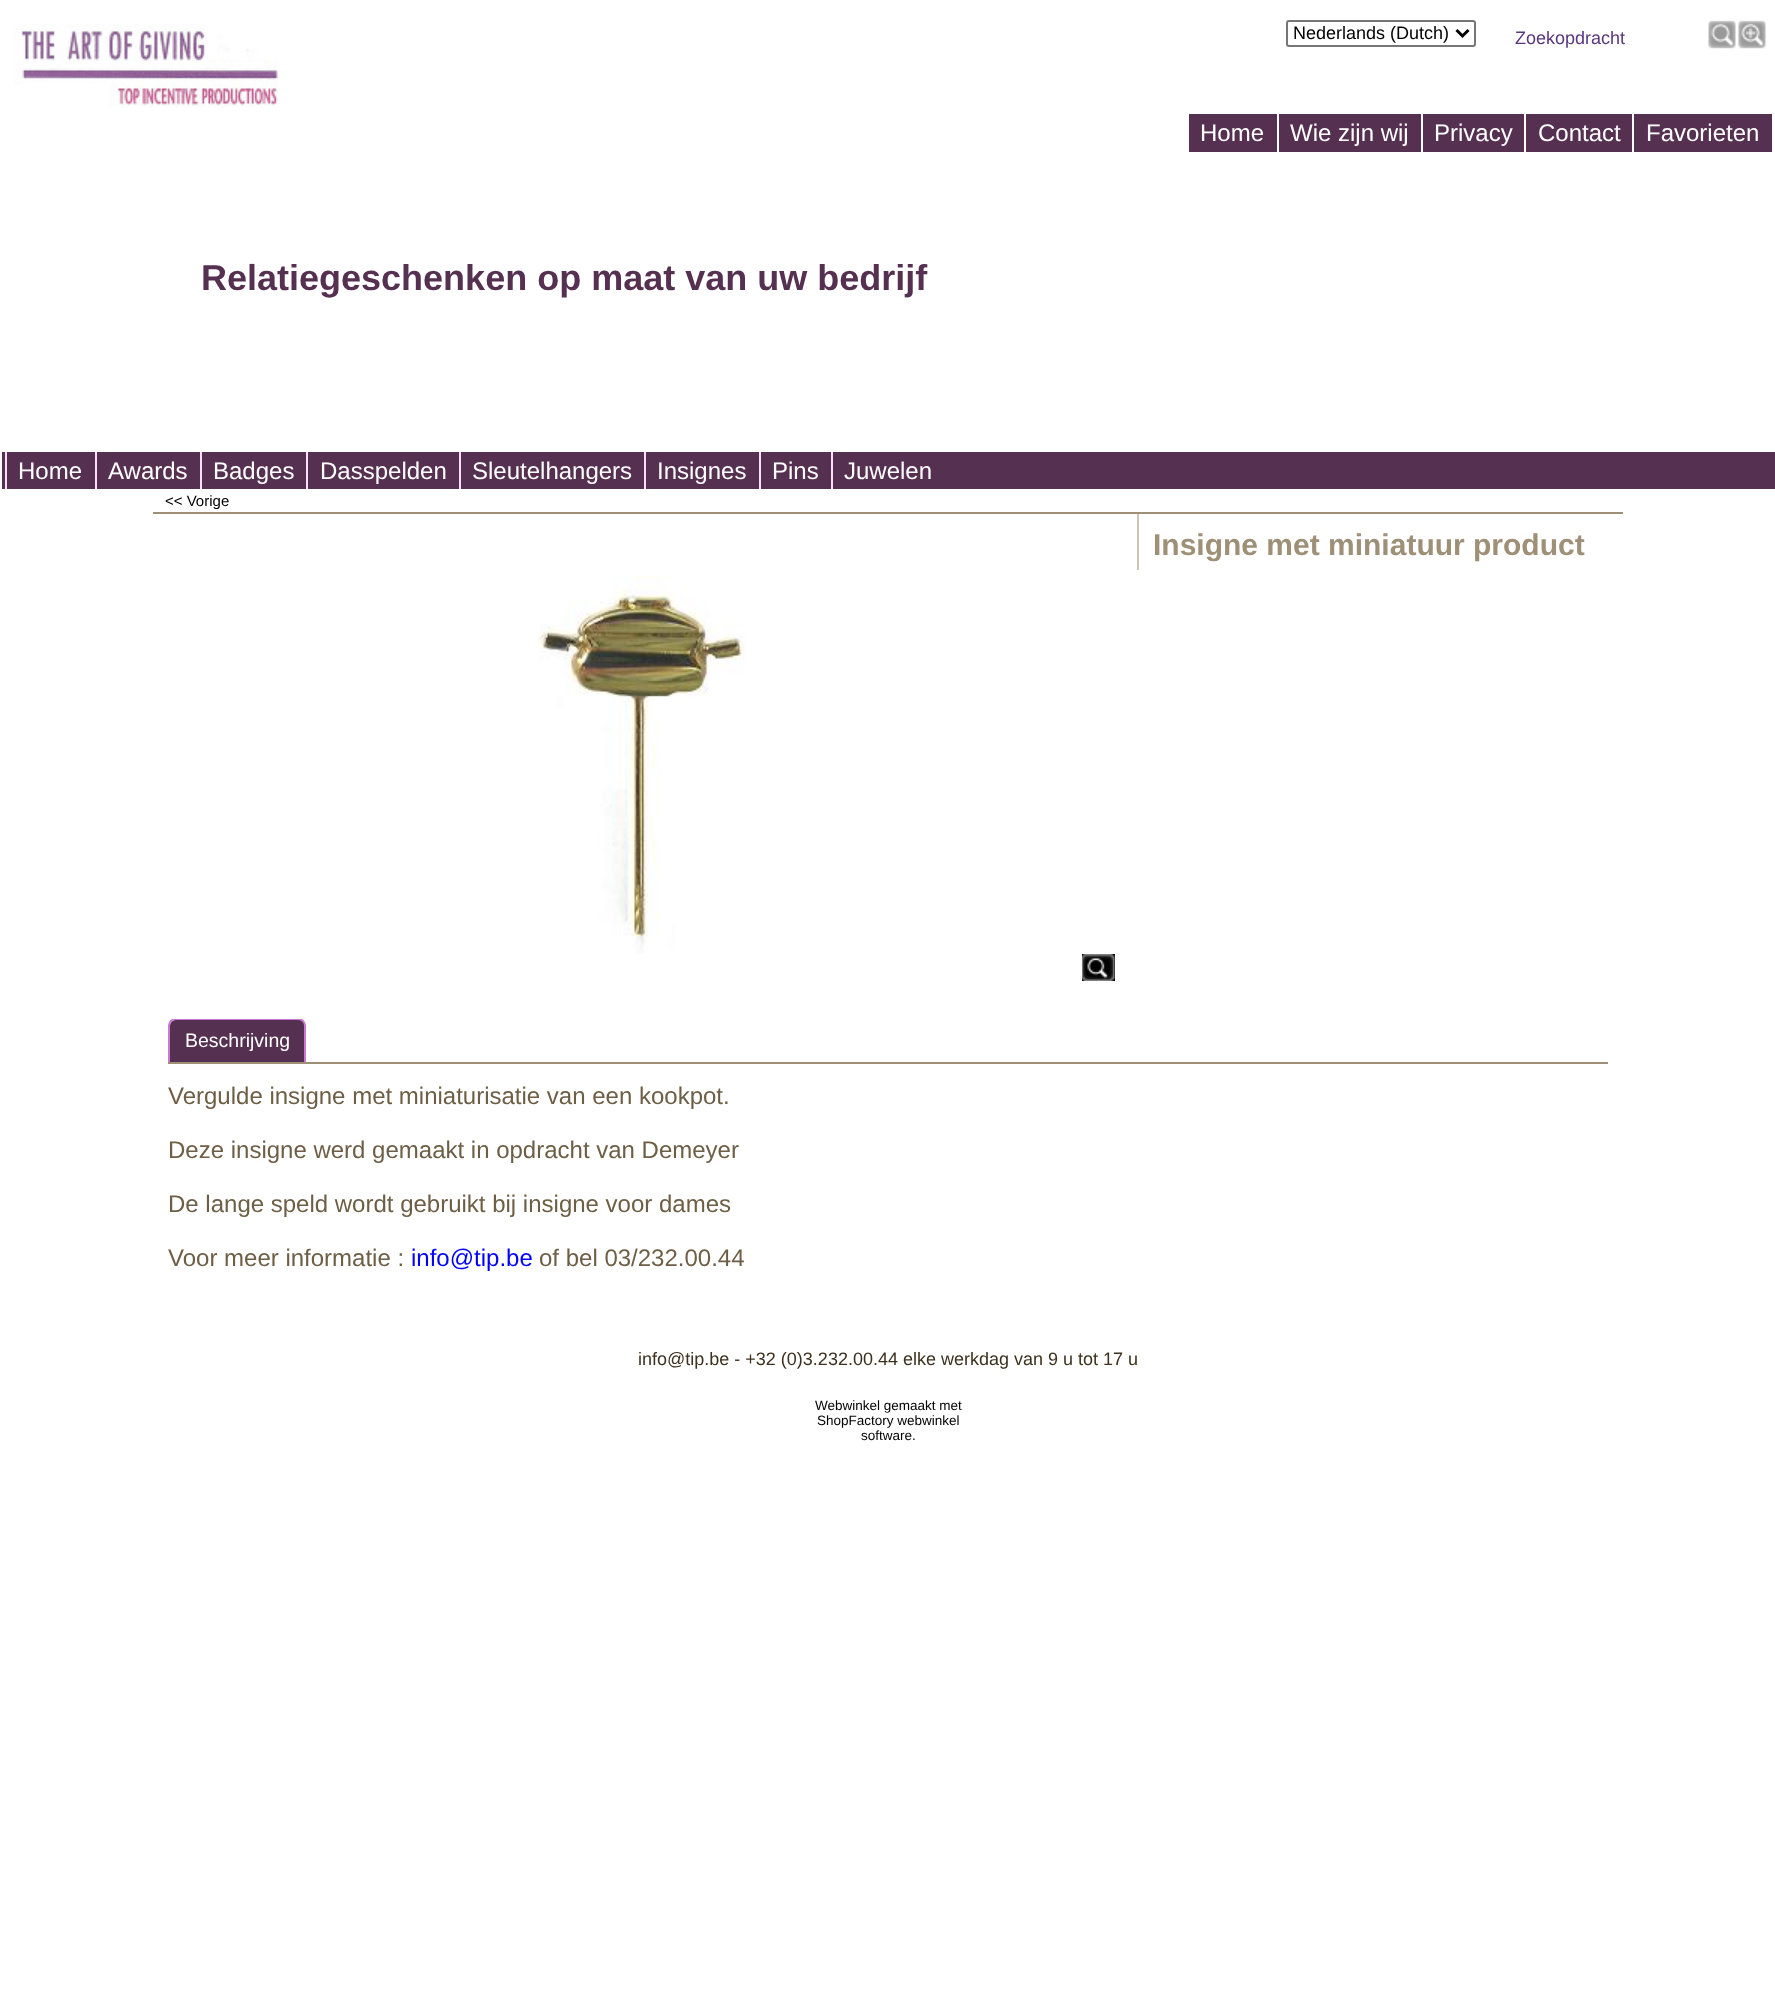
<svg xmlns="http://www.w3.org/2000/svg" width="1775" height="1995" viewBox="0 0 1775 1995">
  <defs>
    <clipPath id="clip1"><path d="M168 1019h1440v43H168z"/></clipPath>
  </defs>
  <rect width="100%" height="100%" fill="#fff"/>
  <image x="14" y="24" width="264" height="84" href="img/1.png"/>
  <rect x="1287" y="21" width="188" height="25" rx="2" fill="none" stroke="#767676" stroke-width="2"/>
  <path d="M1456.5 30L1462.5 36L1468.5 30" fill="none" stroke="#000" stroke-width="3"/>
  <image x="1708" y="20" width="28" height="29" href="img/2.png"/>
  <image x="1738" y="20" width="28" height="29" href="img/3.png"/>
  <path d="M1189 114h88v38H1189z" fill="#553050"/>
  <path d="M1279 114h142v38H1279z" fill="#553050"/>
  <path d="M1423 114h101v38H1423z" fill="#553050"/>
  <path d="M1526 114h106v38H1526z" fill="#553050"/>
  <path d="M1634 114h138v38H1634z" fill="#553050"/>
  <path d="M2 452h1773v37H2z" fill="#553050"/>
  <path d="M5 452h2v37H5z" fill="#f8def8"/>
  <path d="M95 452h2v37H95z" fill="#f8def8"/>
  <path d="M200 452h2v37H200z" fill="#f8def8"/>
  <path d="M306 452h2v37H306z" fill="#f8def8"/>
  <path d="M459 452h2v37H459z" fill="#f8def8"/>
  <path d="M644 452h2v37H644z" fill="#f8def8"/>
  <path d="M759 452h2v37H759z" fill="#f8def8"/>
  <path d="M831 452h2v37H831z" fill="#f8def8"/>
  <path d="M1137 513h2v57H1137z" fill="#cec4b5"/>
  <path d="M153 512h1470v2H153z" fill="#9e8f77"/>
  <image x="538" y="575" width="207" height="378" href="img/4.png"/>
  <path d="M1082 954h33v27H1082z" fill="#000"/>
  <image x="1082" y="954" width="33" height="27" href="img/5.png"/>
  <path d="M168 1062h1440v2H168z" fill="#9e8f77"/>
  <path d="M176 1020H299C302.5 1020 305 1022.5 305 1026V1062H170V1026C170 1022.5 172.5 1020 176 1020Z" fill="#553050"/>
  <g clip-path="url(#clip1)">
    <path d="M176 1018H298C303 1018 306 1022 306 1026V1062H168V1026C168 1022 171 1018 176 1018ZM176 1020H298C302 1020 304 1023 304 1026V1062H170V1026C170 1023 172 1020 176 1020Z" fill="#c979d4" fill-rule="evenodd"/>
  </g>
  <text x="1293" y="39" font-family="Liberation Sans" font-size="18" fill="#000">Nederlands (Dutch)</text>
  <text x="1515" y="44" font-family="Liberation Sans" font-size="18" fill="#5a367f">Zoekopdracht</text>
  <g font-family="Liberation Sans" font-size="24" fill="#fff">
    <text x="1200" y="141">Home</text>
    <text x="1290" y="141">Wie zijn wij</text>
    <text x="1434" y="141">Privacy</text>
    <text x="1538" y="141">Contact</text>
    <text x="1646" y="141">Favorieten</text>
  </g>
  <text x="201" y="290" font-family="Liberation Sans" font-size="36" font-weight="bold" fill="#553050">Relatiegeschenken op maat van uw bedrijf</text>
  <g font-family="Liberation Sans" font-size="24" fill="#fff">
    <text x="18" y="479">Home</text>
    <text x="108" y="479">Awards</text>
    <text x="213" y="479">Badges</text>
    <text x="320" y="479">Dasspelden</text>
    <text x="472" y="479">Sleutelhangers</text>
    <text x="657" y="479">Insignes</text>
    <text x="772" y="479">Pins</text>
    <text x="844" y="479">Juwelen</text>
  </g>
  <text x="165" y="506" font-family="Liberation Sans" font-size="15" fill="#000">&lt;&lt; Vorige</text>
  <text x="1153" y="555" font-family="Liberation Sans" font-size="30" font-weight="bold" fill="#9e8f77">Insigne met miniatuur product</text>
  <text x="185" y="1047" font-family="Liberation Sans" font-size="19.5" fill="#fff">Beschrijving</text>
  <g font-family="Liberation Sans" font-size="24" fill="#6d5e45">
    <text x="168" y="1104">Vergulde insigne met miniaturisatie van een kookpot.</text>
    <text x="168" y="1158">Deze insigne werd gemaakt in opdracht van Demeyer</text>
    <text x="168" y="1212">De lange speld wordt gebruikt bij insigne voor dames</text>
    <text x="168" y="1266">Voor meer informatie :</text>
  </g>
  <text x="411" y="1266" font-family="Liberation Sans" font-size="24" fill="#00f">info@tip.be</text>
  <text x="539" y="1266" font-family="Liberation Sans" font-size="24" fill="#6d5e45">of bel 03/232.00.44</text>
  <text x="638" y="1365" font-family="Liberation Sans" font-size="18" fill="#3d311f">info@tip.be - +32 (0)3.232.00.44 elke werkdag van 9 u tot 17 u</text>
  <g font-family="Liberation Sans" font-size="13.5" fill="#000">
    <text x="815" y="1410">Webwinkel gemaakt met</text>
    <text x="817" y="1425">ShopFactory webwinkel</text>
    <text x="861" y="1440">software.</text>
  </g>
</svg>
